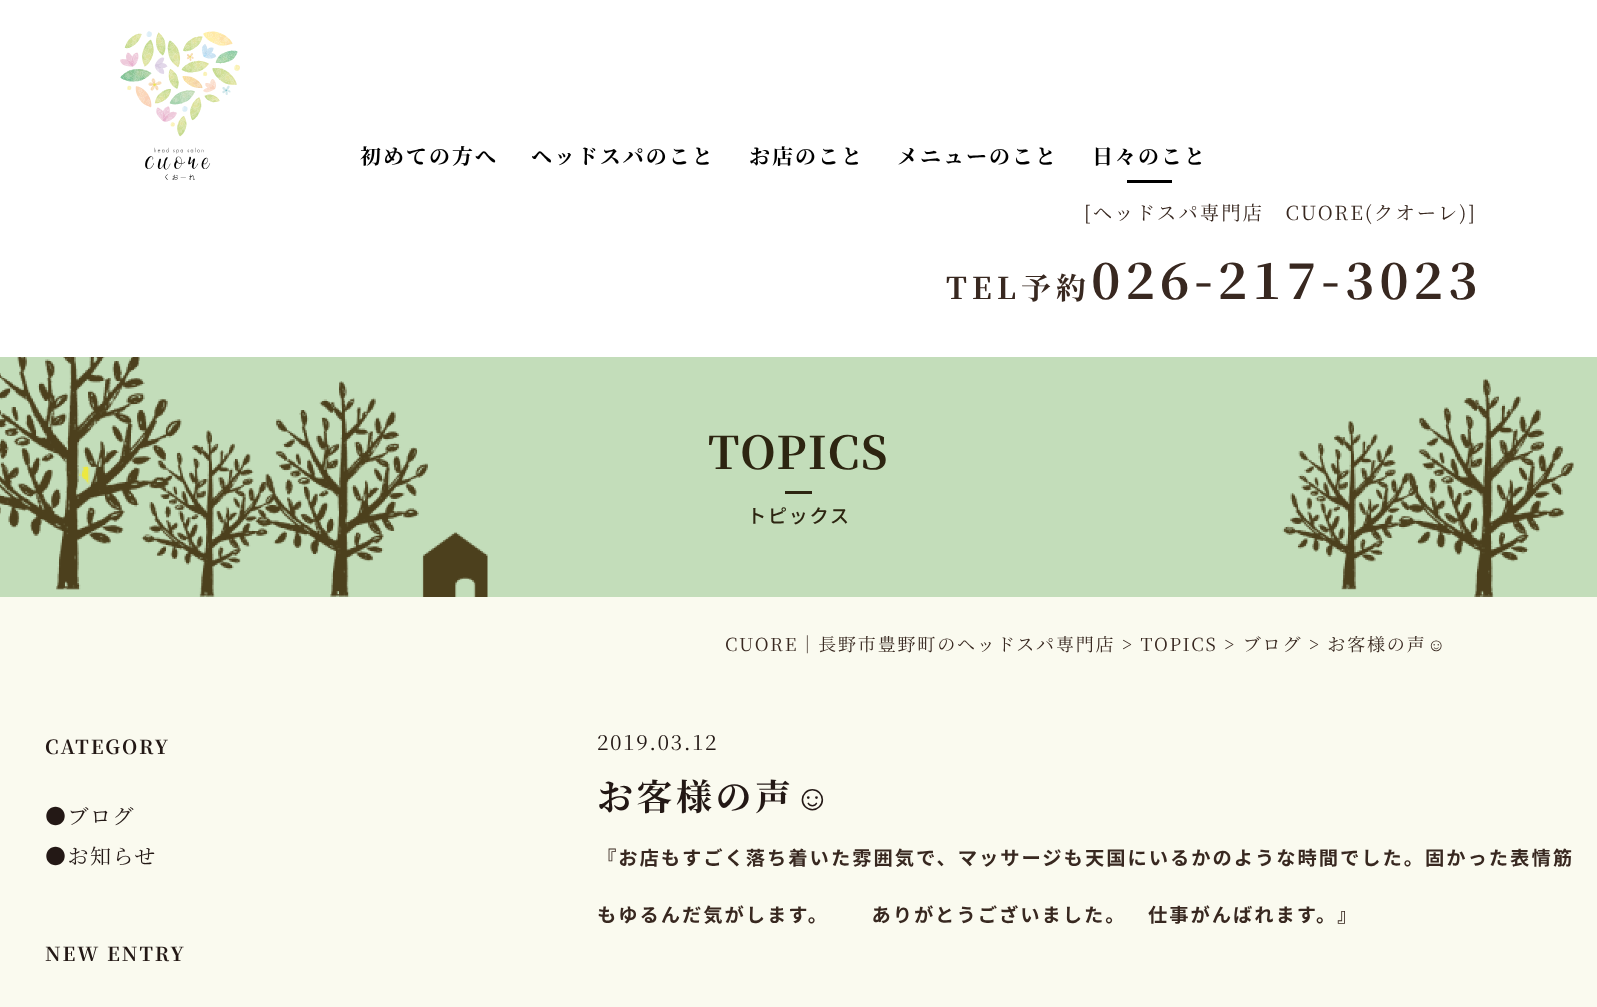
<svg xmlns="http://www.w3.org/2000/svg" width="1597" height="1007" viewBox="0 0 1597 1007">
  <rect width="100%" height="100%" fill="#fff"/>
  <image x="120" y="31" width="120" height="149" href="img/1.png"/>
  <path d="M1127 180h45v3H1127z" fill="#000"/>
  <path d="M0 357h1597v240H0z" fill="#c3ddba"/>
  <image x="0" y="357" width="488" height="240" href="img/2.png"/>
  <image x="1282" y="378" width="292" height="219" href="img/3.png"/>
  <path d="M785 491h27v3H785z" fill="#2d2511"/>
  <path d="M0 597h1597v410H0z" fill="#fafaef"/>
  <g font-family="Noto Serif JP" font-size="21" font-weight="bold" letter-spacing="2" fill="#000">
    <text x="360" y="164">初めての方へ</text>
    <text x="531" y="164">ヘッドスパのこと</text>
    <text x="749" y="164">お店のこと</text>
    <text x="897" y="164">メニューのこと</text>
    <text x="1092" y="164">日々のこと</text>
  </g>
  <text x="1084" y="220" font-family="Noto Serif JP" font-size="19.5" letter-spacing="1.95" fill="#382820">[ヘッドスパ専門店　CUORE(クオーレ)]</text>
  <text x="946" y="299" font-family="Noto Serif JP" font-size="30" font-weight="bold" letter-spacing="5" fill="#382820">TEL予約</text>
  <text x="1091" y="299" font-family="Noto Serif JP" font-size="50" font-weight="bold" letter-spacing="5" fill="#382820">026-217-3023</text>
  <text x="708" y="469" font-family="Noto Serif JP" font-size="45" font-weight="bold" letter-spacing="1.5" fill="#2d2511">TOPICS</text>
  <text x="747" y="523" font-family="Noto Sans JP" font-size="19.32" font-weight="500" letter-spacing="1.5" fill="#2d2511">トピックス</text>
  <text x="725" y="651" font-family="Noto Serif JP" font-size="18.05" letter-spacing="1.8" fill="#382820">CUORE｜長野市豊野町のヘッドスパ専門店 &gt; TOPICS &gt; ブログ &gt; お客様の声</text>
  <text x="1427" y="651" font-family="Liberation Serif" font-size="18.05" letter-spacing="1.8" fill="#382820">☺</text>
  <text x="45" y="754" font-family="Noto Serif JP" font-size="19.32" font-weight="bold" letter-spacing="1.95" fill="#231815">CATEGORY</text>
  <g font-family="Noto Serif JP" font-size="21" letter-spacing="1.5" fill="#231815">
    <text x="45" y="824">●ブログ</text>
    <text x="45" y="864">●お知らせ</text>
  </g>
  <text x="45" y="961" font-family="Noto Serif JP" font-size="19.32" font-weight="bold" letter-spacing="1.95" fill="#231815">NEW ENTRY</text>
  <text x="597" y="750" font-family="Noto Serif JP" font-size="21" letter-spacing="1.5" fill="#231815">2019.03.12</text>
  <text x="597" y="810" font-family="Noto Serif JP" font-size="36" font-weight="bold" letter-spacing="3.5" fill="#231815">お客様の声</text>
  <text x="794" y="810" font-family="Liberation Serif" font-size="36" font-weight="bold" letter-spacing="3.5" fill="#231815">☺</text>
  <g font-family="Noto Sans JP" font-size="19.32" font-weight="bold" letter-spacing="1.95" fill="#382820">
    <text x="597" y="865">『お店もすごく落ち着いた雰囲気で、マッサージも天国にいるかのような時間でした。固かった表情筋</text>
    <text x="597" y="922">もゆるんだ気がします。　　ありがとうございました。　仕事がんばれます。』</text>
  </g>
</svg>
